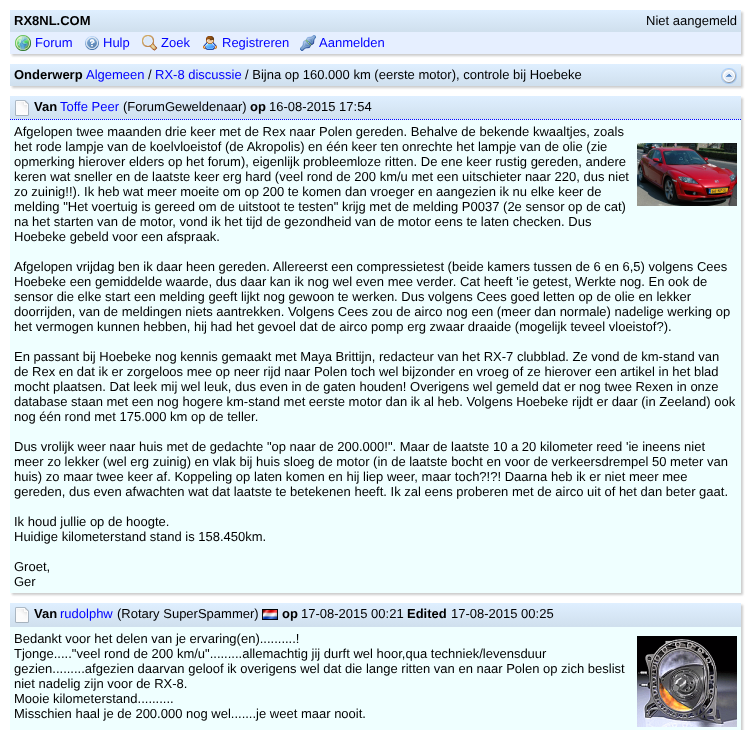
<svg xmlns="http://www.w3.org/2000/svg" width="751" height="730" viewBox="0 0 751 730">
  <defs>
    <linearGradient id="g1" gradientUnits="userSpaceOnUse" x1="376" y1="10" x2="376" y2="31"><stop offset="0" stop-color="#dfefff"/><stop offset="1" stop-color="#d0e0ee"/></linearGradient>
    <linearGradient id="g2" gradientUnits="userSpaceOnUse" x1="376" y1="64" x2="376" y2="85"><stop offset="0" stop-color="#dfefff"/><stop offset="1" stop-color="#d0e0ee"/></linearGradient>
    <linearGradient id="g3" gradientUnits="userSpaceOnUse" x1="376" y1="96" x2="376" y2="119"><stop offset="0" stop-color="#dfefff"/><stop offset="1" stop-color="#d0e0ee"/></linearGradient>
    <linearGradient id="g4" gradientUnits="userSpaceOnUse" x1="376" y1="119" x2="376" y2="142"><stop offset="0" stop-color="#dfefff"/><stop offset="1" stop-color="#d0e0ee"/></linearGradient>
    <linearGradient id="g5" gradientUnits="userSpaceOnUse" x1="376" y1="603" x2="376" y2="626"><stop offset="0" stop-color="#dfefff"/><stop offset="1" stop-color="#d0e0ee"/></linearGradient>
  </defs>
  <rect width="100%" height="100%" fill="#fff"/>
  <path d="M12 12h731v44H12z" fill="#ccc" filter="blur(1px)"/>
  <path d="M10 10h731v21H10z" fill="url(#g1)"/>
  <path d="M10 31h731v1H10z" fill="#d0e0ee"/>
  <path d="M10 32h731v22H10z" fill="#e6efff"/>
  <image x="15" y="35" width="16" height="16" href="img/1.png"/>
  <image x="85" y="36" width="14" height="14" href="img/2.png"/>
  <image x="142" y="35" width="16" height="16" href="img/3.png"/>
  <image x="203" y="36" width="14" height="14" href="img/4.png"/>
  <image x="300" y="35" width="16" height="16" href="img/5.png"/>
  <path d="M12 66h731v22H12z" fill="#ccc" filter="blur(1px)"/>
  <path d="M10 64h731v21H10z" fill="url(#g2)"/>
  <path d="M10 85h731v1H10z" fill="#d0e0ee"/>
  <image x="721" y="68" width="16" height="16" href="img/6.png"/>
  <path d="M12 98h731v497H12z" fill="#ccc" filter="blur(1px)"/>
  <path d="M10 96h731v23H10z" fill="url(#g3)"/>
  <path d="M10 119h731v1H10z" fill="url(#g4)"/>
  <path d="M10 119.5H741" fill="none" stroke="#00f" stroke-dasharray="1 1"/>
  <image x="15" y="100" width="14" height="16" href="img/7.png"/>
  <path d="M10 120h731v473H10z" fill="#efffff"/>
  <image x="637" y="143" width="100" height="63" href="img/8.png"/>
  <path d="M12 605h731v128H12z" fill="#ccc" filter="blur(1px)"/>
  <path d="M10 603h731v23H10z" fill="url(#g5)"/>
  <path d="M10 626h731v1H10z" fill="#d0e0ee"/>
  <image x="15" y="607" width="14" height="16" href="img/7.png"/>
  <image x="262" y="609" width="16" height="11" href="img/9.png"/>
  <path d="M10 627h731v103H10z" fill="#efffff"/>
  <image x="637" y="636" width="100" height="91" href="img/10.png"/>
  <text x="14" y="25" font-family="Liberation Sans" font-size="13" font-weight="bold" fill="#000">RX8NL.COM</text>
  <text x="646" y="25" font-family="Liberation Sans" font-size="13" fill="#000">Niet aangemeld</text>
  <g font-family="Liberation Sans" font-size="13" fill="#00f">
    <text x="35" y="47">Forum</text>
    <text x="103" y="47">Hulp</text>
    <text x="161" y="47">Zoek</text>
    <text x="222" y="47">Registreren</text>
    <text x="319" y="47">Aanmelden</text>
  </g>
  <text x="14" y="79" font-family="Liberation Sans" font-size="13" font-weight="bold" fill="#000">Onderwerp</text>
  <text x="86" y="79" font-family="Liberation Sans" font-size="13" fill="#00f">Algemeen</text>
  <text x="148" y="79" font-family="Liberation Sans" font-size="13" fill="#000">/</text>
  <text x="155" y="79" font-family="Liberation Sans" font-size="13" fill="#00f">RX-8 discussie</text>
  <text x="245" y="79" font-family="Liberation Sans" font-size="13" fill="#000">/ Bijna op 160.000 km (eerste motor), controle bij Hoebeke</text>
  <text x="34" y="111" font-family="Liberation Sans" font-size="13" font-weight="bold" fill="#000">Van</text>
  <text x="60" y="111" font-family="Liberation Sans" font-size="13" fill="#00f">Toffe Peer</text>
  <text x="123" y="111" font-family="Liberation Sans" font-size="13" fill="#000">(ForumGeweldenaar)</text>
  <text x="250" y="111" font-family="Liberation Sans" font-size="13" font-weight="bold" fill="#000">op</text>
  <g font-family="Liberation Sans" font-size="13" fill="#000">
    <text x="269" y="111">16-08-2015 17:54</text>
    <text x="14" y="136">Afgelopen twee maanden drie keer met de Rex naar Polen gereden. Behalve de bekende kwaaltjes, zoals</text>
    <text x="14" y="151">het rode lampje van de koelvloeistof (de Akropolis) en één keer ten onrechte het lampje van de olie (zie</text>
    <text x="14" y="166">opmerking hierover elders op het forum), eigenlijk probleemloze ritten. De ene keer rustig gereden, andere</text>
    <text x="14" y="181">keren wat sneller en de laatste keer erg hard (veel rond de 200 km/u met een uitschieter naar 220, dus niet</text>
    <text x="14" y="196">zo zuinig!!). Ik heb wat meer moeite om op 200 te komen dan vroeger en aangezien ik nu elke keer de</text>
    <text x="14" y="211">melding "Het voertuig is gereed om de uitstoot te testen" krijg met de melding P0037 (2e sensor op de cat)</text>
    <text x="14" y="226">na het starten van de motor, vond ik het tijd de gezondheid van de motor eens te laten checken. Dus</text>
    <text x="14" y="241">Hoebeke gebeld voor een afspraak.</text>
    <text x="14" y="271">Afgelopen vrijdag ben ik daar heen gereden. Allereerst een compressietest (beide kamers tussen de 6 en 6,5) volgens Cees</text>
    <text x="14" y="286">Hoebeke een gemiddelde waarde, dus daar kan ik nog wel even mee verder. Cat heeft 'ie getest, Werkte nog. En ook de</text>
    <text x="14" y="301">sensor die elke start een melding geeft lijkt nog gewoon te werken. Dus volgens Cees goed letten op de olie en lekker</text>
    <text x="14" y="316">doorrijden, van de meldingen niets aantrekken. Volgens Cees zou de airco nog een (meer dan normale) nadelige werking op</text>
    <text x="14" y="331">het vermogen kunnen hebben, hij had het gevoel dat de airco pomp erg zwaar draaide (mogelijk teveel vloeistof?).</text>
    <text x="14" y="361">En passant bij Hoebeke nog kennis gemaakt met Maya Brittijn, redacteur van het RX-7 clubblad. Ze vond de km-stand van</text>
    <text x="14" y="376">de Rex en dat ik er zorgeloos mee op neer rijd naar Polen toch wel bijzonder en vroeg of ze hierover een artikel in het blad</text>
    <text x="14" y="391">mocht plaatsen. Dat leek mij wel leuk, dus even in de gaten houden! Overigens wel gemeld dat er nog twee Rexen in onze</text>
    <text x="14" y="406">database staan met een nog hogere km-stand met eerste motor dan ik al heb. Volgens Hoebeke rijdt er daar (in Zeeland) ook</text>
    <text x="14" y="421">nog één rond met 175.000 km op de teller.</text>
    <text x="14" y="451">Dus vrolijk weer naar huis met de gedachte "op naar de 200.000!". Maar de laatste 10 a 20 kilometer reed 'ie ineens niet</text>
    <text x="14" y="466">meer zo lekker (wel erg zuinig) en vlak bij huis sloeg de motor (in de laatste bocht en voor de verkeersdrempel 50 meter van</text>
    <text x="14" y="481">huis) zo maar twee keer af. Koppeling op laten komen en hij liep weer, maar toch?!?! Daarna heb ik er niet meer mee</text>
    <text x="14" y="496">gereden, dus even afwachten wat dat laatste te betekenen heeft. Ik zal eens proberen met de airco uit of het dan beter gaat.</text>
    <text x="14" y="526">Ik houd jullie op de hoogte.</text>
    <text x="14" y="541">Huidige kilometerstand stand is 158.450km.</text>
    <text x="14" y="571">Groet,</text>
    <text x="14" y="586">Ger</text>
  </g>
  <text x="34" y="618" font-family="Liberation Sans" font-size="13" font-weight="bold" fill="#000">Van</text>
  <text x="60" y="618" font-family="Liberation Sans" font-size="13" fill="#00f">rudolphw</text>
  <text x="117" y="618" font-family="Liberation Sans" font-size="13" fill="#000">(Rotary SuperSpammer)</text>
  <text x="282" y="618" font-family="Liberation Sans" font-size="13" font-weight="bold" fill="#000">op</text>
  <text x="301" y="618" font-family="Liberation Sans" font-size="13" fill="#000">17-08-2015 00:21</text>
  <text x="407" y="618" font-family="Liberation Sans" font-size="13" font-weight="bold" fill="#000">Edited</text>
  <g font-family="Liberation Sans" font-size="13" fill="#000">
    <text x="451" y="618">17-08-2015 00:25</text>
    <text x="14" y="643">Bedankt voor het delen van je ervaring(en)..........!</text>
    <text x="14" y="658">Tjonge....."veel rond de 200 km/u".........allemachtig jij durft wel hoor,qua techniek/levensduur</text>
    <text x="14" y="673">gezien.........afgezien daarvan geloof ik overigens wel dat die lange ritten van en naar Polen op zich beslist</text>
    <text x="14" y="688">niet nadelig zijn voor de RX-8.</text>
    <text x="14" y="703">Mooie kilometerstand..........</text>
    <text x="14" y="718">Misschien haal je de 200.000 nog wel.......je weet maar nooit.</text>
  </g>
</svg>
